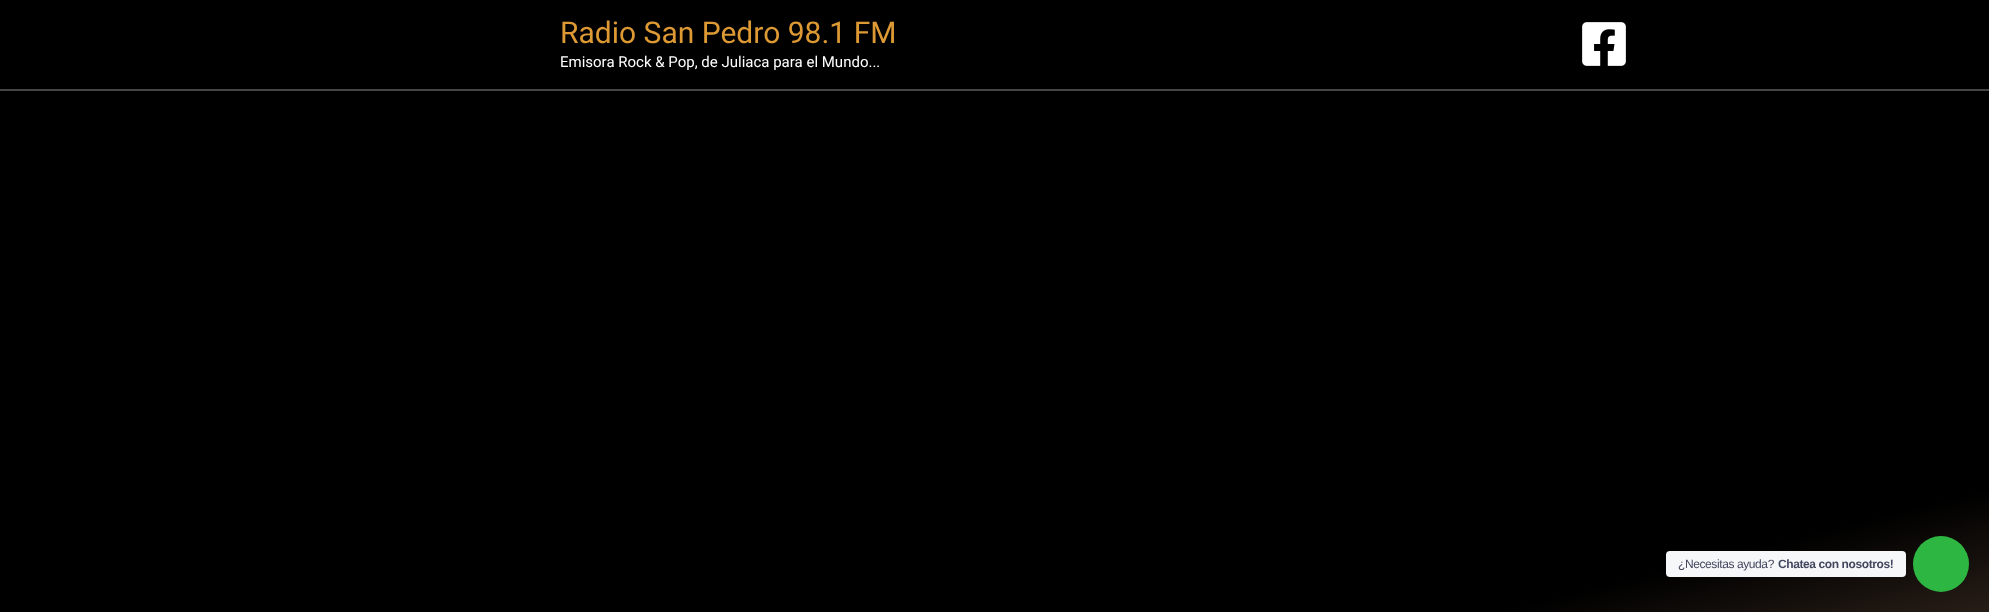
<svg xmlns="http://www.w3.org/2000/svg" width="1989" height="612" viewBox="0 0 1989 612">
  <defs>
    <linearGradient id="g1" gradientUnits="userSpaceOnUse" x1="784" y1="-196" x2="1205" y2="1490"><stop offset="0.55" stop-color="#000"/><stop offset="1" stop-color="#ffbd93"/></linearGradient>
  </defs>
  <rect width="100%" height="100%" fill="#fff"/>
  <path d="M0 91h1989v521H0z" fill="url(#g1)"/>
  <path d="M0 0h1989v89H0z" fill="#000"/>
  <path d="M0 89h1989v2H0z" fill="#454545"/>
  <image x="1582" y="22" width="44" height="44" href="img/1.png"/>
  <rect x="1666" y="551" width="240" height="26" rx="4" fill="#f5f7f9"/>
  <circle cx="1941" cy="564" r="28" fill="#2db742"/>
  <text x="560" y="43" font-family="Roboto" font-size="30" fill="#d93">Radio San Pedro 98.1 FM</text>
  <text x="560" y="67" font-family="Roboto" font-size="15" fill="#fff">Emisora Rock &amp; Pop, de Juliaca para el Mundo...</text>
  <text x="1678" y="568" font-family="Liberation Sans" font-size="12" letter-spacing="-0.4" fill="#43475e">¿Necesitas ayuda?</text>
  <text x="1778" y="568" font-family="Liberation Sans" font-size="12" font-weight="bold" letter-spacing="-0.4" fill="#43475e">Chatea con nosotros!</text>
</svg>
